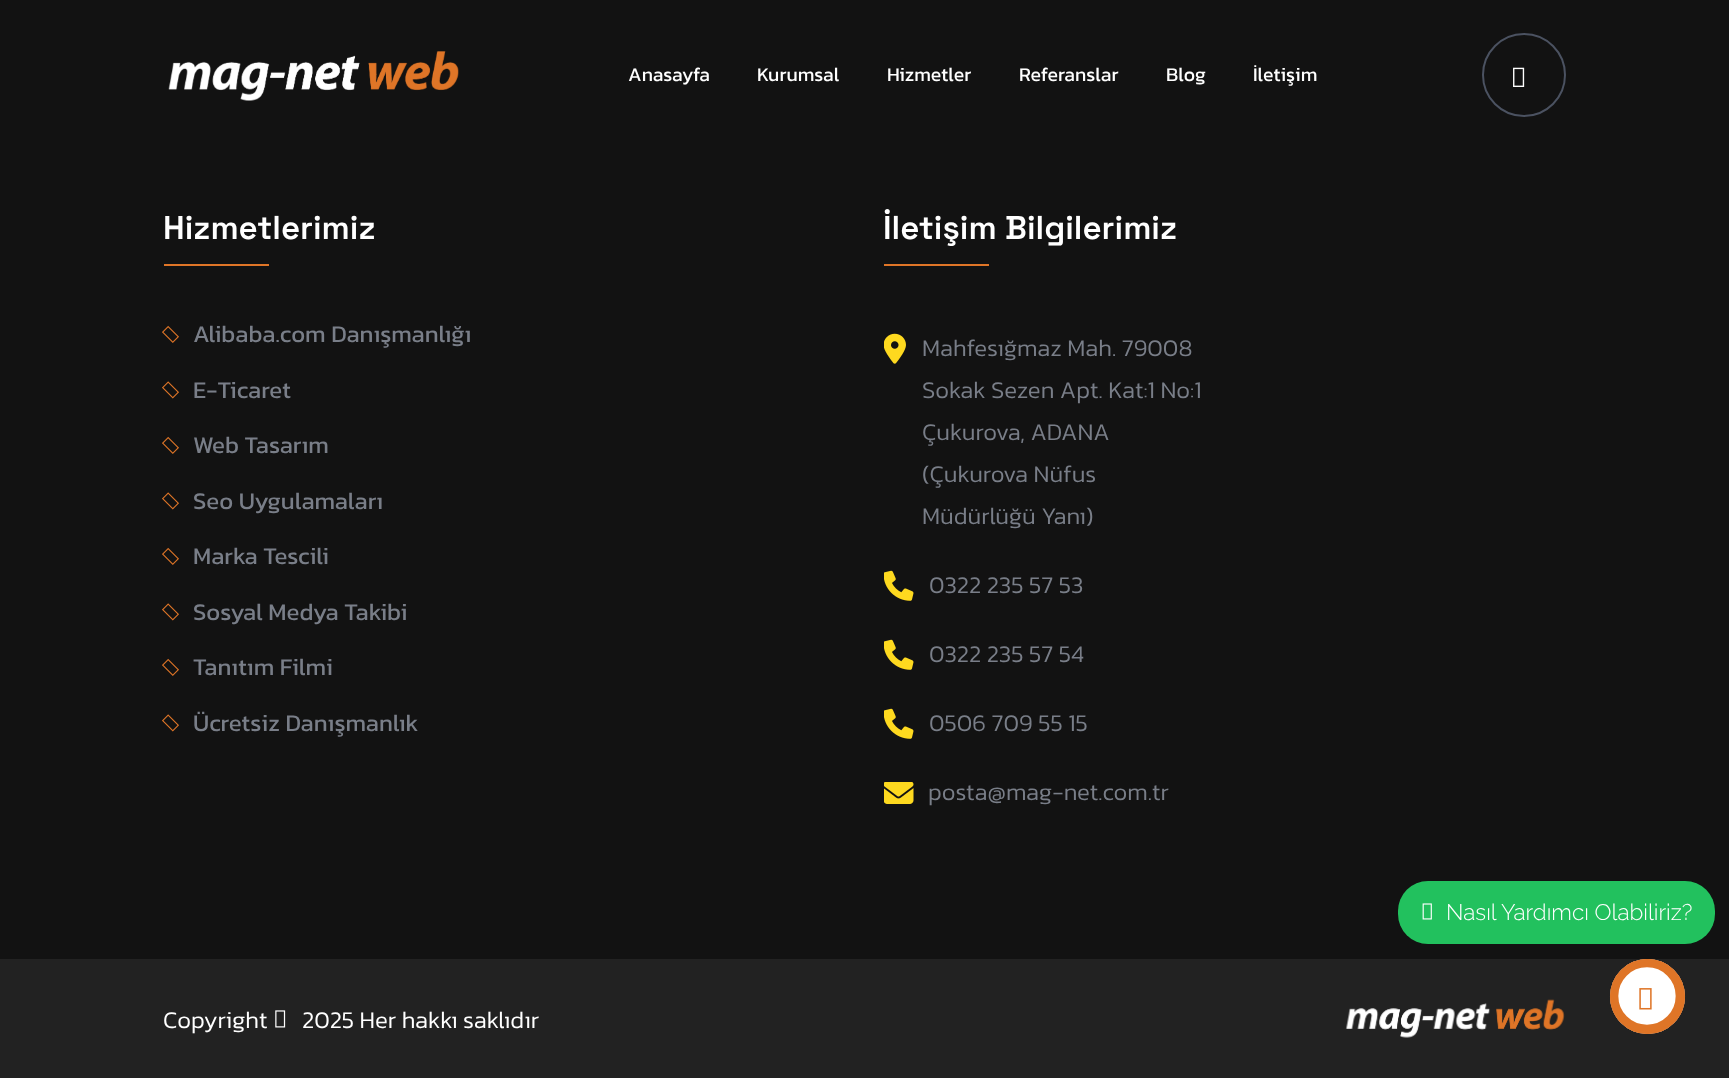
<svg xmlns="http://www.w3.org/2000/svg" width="1729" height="1078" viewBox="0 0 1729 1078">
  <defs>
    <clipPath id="clip1"><rect x="1610" y="959" width="75" height="75" rx="37.5"/></clipPath>
  </defs>
  <rect width="100%" height="100%" fill="#121212"/>
  <image x="168" y="51" width="291" height="50" href="img/1.png"/>
  <circle cx="1524" cy="75" r="41" fill="none" stroke="#4b5261" stroke-width="2"/>
  <image x="1513" y="67" width="12" height="20" href="img/2.png"/>
  <path d="M164 264h105v2H164z" fill="#df7527"/>
  <image x="162" y="325" width="17" height="18" href="img/3.png"/>
  <image x="162" y="381" width="17" height="18" href="img/4.png"/>
  <image x="162" y="436" width="17" height="18" href="img/3.png"/>
  <image x="162" y="492" width="17" height="18" href="img/4.png"/>
  <image x="162" y="547" width="17" height="18" href="img/3.png"/>
  <image x="162" y="603" width="17" height="18" href="img/4.png"/>
  <image x="162" y="658" width="17" height="18" href="img/3.png"/>
  <image x="162" y="714" width="17" height="18" href="img/4.png"/>
  <path d="M884 264h105v2H884z" fill="#df7527"/>
  <image x="884" y="333" width="22" height="31" href="img/5.png"/>
  <image x="884" y="570" width="30" height="31" href="img/6.png"/>
  <image x="884" y="639" width="30" height="31" href="img/6.png"/>
  <image x="884" y="708" width="30" height="31" href="img/6.png"/>
  <image x="884" y="782" width="30" height="22" href="img/7.png"/>
  <path d="M0 959h1729v119H0z" fill="#222"/>
  <image x="275" y="1010" width="11" height="18" href="img/8.png"/>
  <image x="1345" y="999" width="220" height="39" href="img/9.png"/>
  <rect x="1398" y="881" width="317" height="63" rx="30" fill="#22c15e"/>
  <image x="1422" y="903" width="10" height="17" href="img/10.png"/>
  <circle cx="1647.5" cy="996.5" r="37.5" fill="#fff"/>
  <g clip-path="url(#clip1)">
    <path d="M1647 960C1667 960 1683 976 1683 996C1683 1016 1667 1032 1647 1032C1627 1032 1611 1016 1611 996C1611 976 1627 960 1647 960" fill="none" stroke="#df7527" stroke-width="14.7"/>
  </g>
  <circle cx="1647.5" cy="996.5" r="36" fill="none" stroke="#df7527" stroke-width="3"/>
  <image x="1639" y="988" width="13" height="22" href="img/11.png"/>
  <g font-family="Kanit" font-size="19.5" fill="#fff">
    <text x="628" y="81">Anasayfa</text>
    <text x="757" y="81">Kurumsal</text>
    <text x="887" y="81">Hizmetler</text>
    <text x="1019" y="81">Referanslar</text>
    <text x="1166" y="81">Blog</text>
    <text x="1253" y="81">İletişim</text>
  </g>
  <text x="163" y="239" font-family="Space Grotesk" font-size="33" font-weight="600" fill="#fff">Hizmetlerimiz</text>
  <g font-family="Kanit" font-size="24" fill="#797e88">
    <text x="193" y="342">Alibaba.com Danışmanlığı</text>
    <text x="193" y="398">E-Ticaret</text>
    <text x="193" y="453">Web Tasarım</text>
    <text x="193" y="509">Seo Uygulamaları</text>
    <text x="193" y="564">Marka Tescili</text>
    <text x="193" y="620">Sosyal Medya Takibi</text>
    <text x="193" y="675">Tanıtım Filmi</text>
    <text x="193" y="731">Ücretsiz Danışmanlık</text>
  </g>
  <text x="883" y="239" font-family="Space Grotesk" font-size="33" font-weight="600" fill="#fff">İletişim Bilgilerimiz</text>
  <g font-family="Kanit" font-size="24" font-weight="300" fill="#797e88">
    <text x="922" y="356">Mahfesığmaz Mah. 79008</text>
    <text x="922" y="398">Sokak Sezen Apt. Kat:1 No:1</text>
    <text x="922" y="440">Çukurova, ADANA</text>
    <text x="922" y="482">(Çukurova Nüfus</text>
    <text x="922" y="524">Müdürlüğü Yanı)</text>
    <text x="929" y="593">0322 235 57 53</text>
    <text x="929" y="662">0322 235 57 54</text>
    <text x="929" y="731">0506 709 55 15</text>
    <text x="928" y="800">posta@mag-net.com.tr</text>
  </g>
  <g font-family="Kanit" font-size="24" font-weight="300" fill="#fff">
    <text x="163" y="1028">Copyright</text>
    <text x="302" y="1028">2025 Her hakkı saklıdır</text>
  </g>
  <text x="1446" y="920" font-family="Raleway" font-size="22.5" font-weight="300" fill="#fff">Nasıl Yardımcı Olabiliriz?</text>
</svg>
